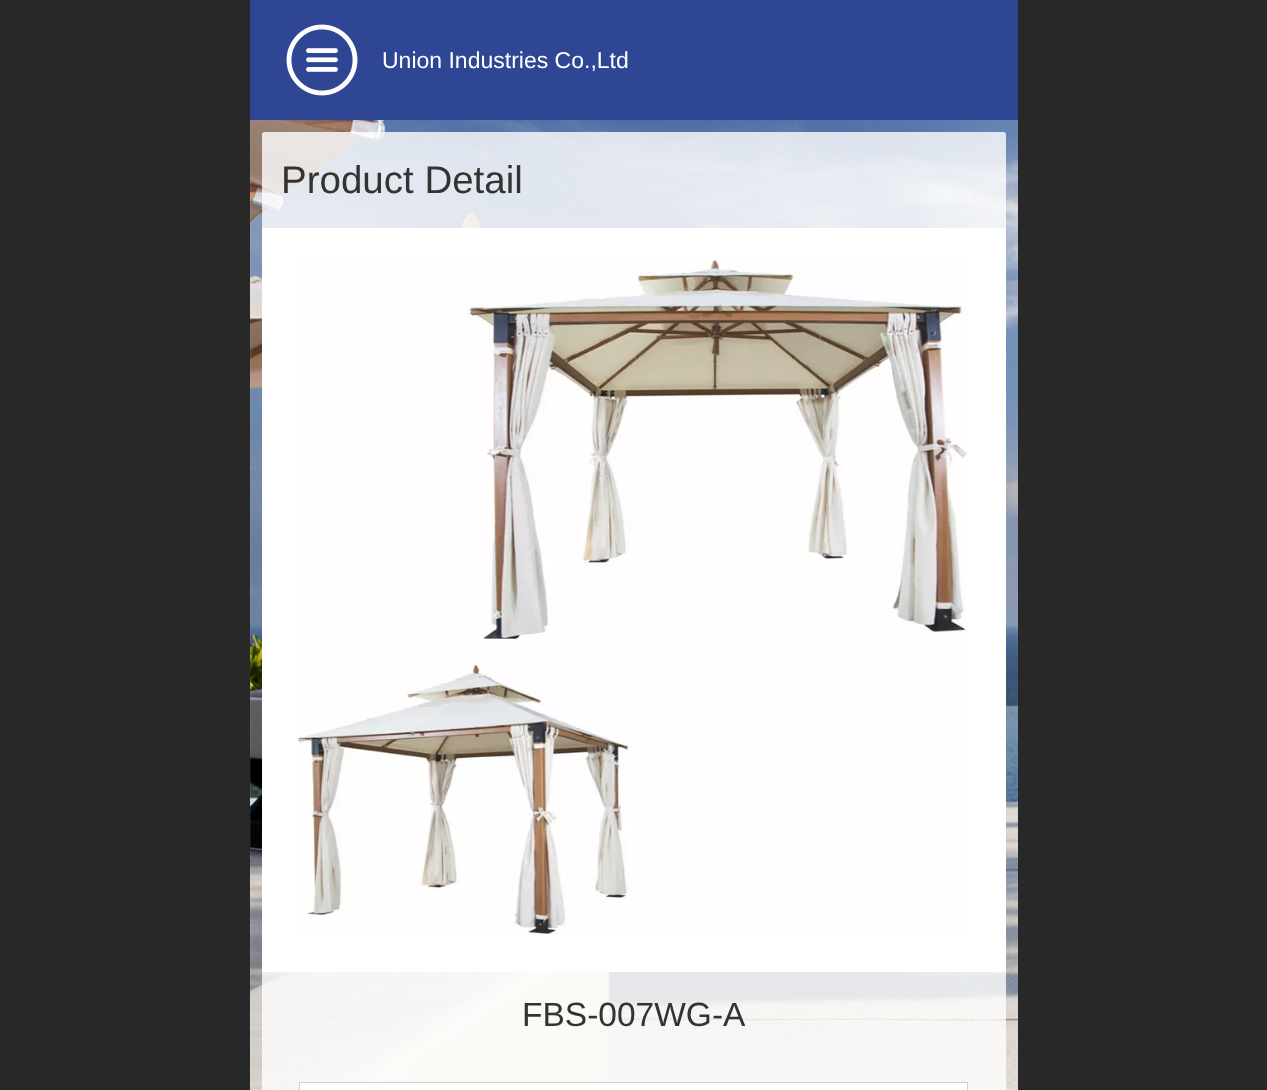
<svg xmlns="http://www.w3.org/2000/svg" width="1267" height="1090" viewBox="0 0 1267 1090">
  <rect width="100%" height="100%" fill="#fff"/>
  <path d="M0 0h250v1090H0z" fill="#282828"/>
  <path d="M250 0h768v120H250z" fill="#2e4693"/>
  <image x="286" y="24" width="72" height="72" href="img/1.png"/>
  <image x="250" y="120" width="768" height="970" href="img/2.png"/>
  <path d="M264.5 132H1003.5C1005 132 1006 133 1006 134.5V228H262V134.5C262 133 263 132 264.5 132Z" fill="#ffffffcc"/>
  <path d="M262 972h744v118H262z" fill="#ffffffcc"/>
  <path d="M262 228h744v744H262z" fill="#fff"/>
  <image x="298" y="258" width="669" height="678" href="img/3.png"/>
  <path d="M299.5 1082.5h668v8H299.5z" fill="#fff" stroke="#cecece"/>
  <path d="M1018 0h249v1090H1018z" fill="#282828"/>
  <text x="382" y="68" font-family="Liberation Sans" font-size="23" fill="#fff">Union Industries Co.,Ltd</text>
  <text x="281" y="193" font-family="Liberation Sans" font-size="38.5" fill="#333">Product Detail</text>
  <text x="522" y="1026" font-family="Liberation Sans" font-size="33.5" fill="#333">FBS-007WG-A</text>
</svg>
